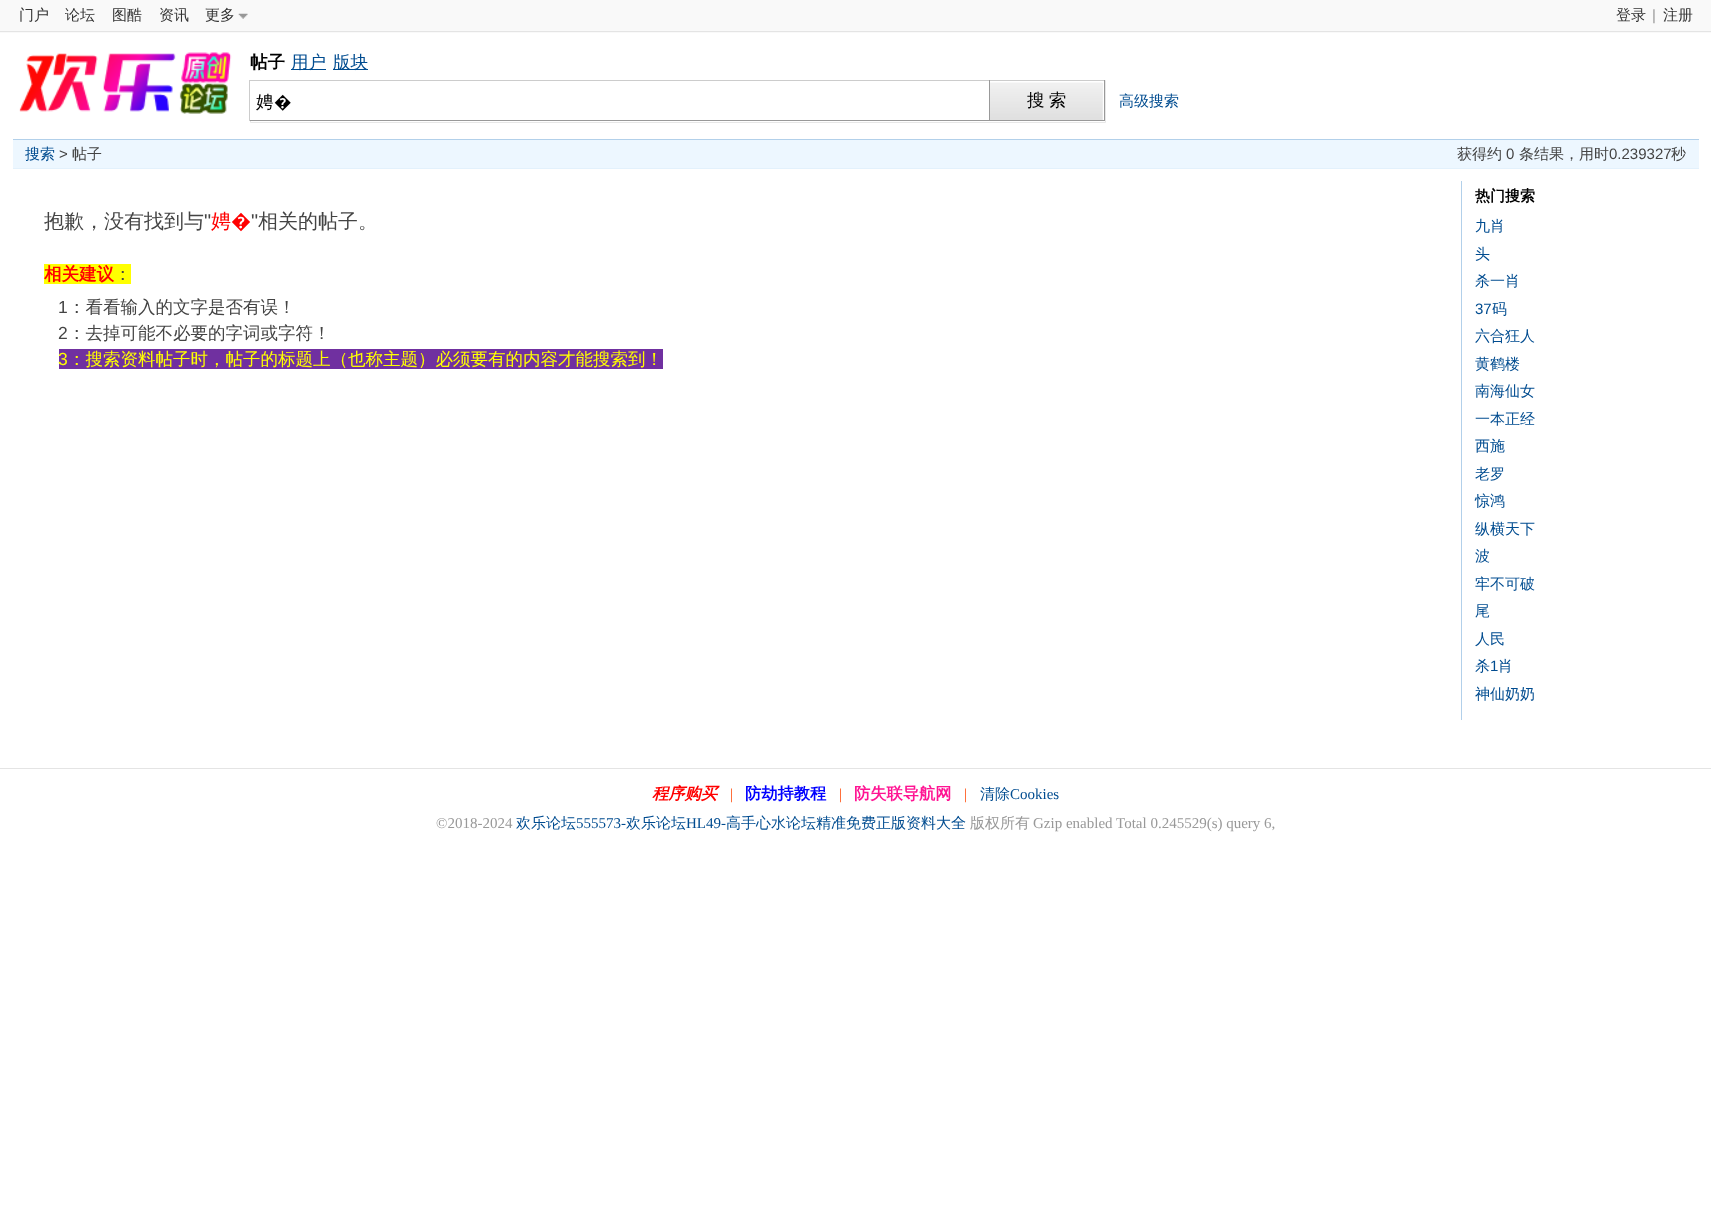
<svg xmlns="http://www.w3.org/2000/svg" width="1711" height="1209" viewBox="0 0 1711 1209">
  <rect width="100%" height="100%" fill="#fff"/>
  <path d="M0 0h1711v33H0z" fill="#f9f9f9"/>
  <path d="M0 31h1711v1H0z" fill="#e4e4e4"/>
  <image x="238" y="13" width="10" height="6" href="img/1.png"/>
  <image x="19" y="52" width="213" height="62" href="img/2.png"/>
  <path d="M291 69h35v1H291z" fill="#014c90"/>
  <path d="M333 69h35v1H333z" fill="#014c90"/>
  <path d="M250.5 80.5h855v42H250.5z" fill="none" stroke="#e7e7e7"/>
  <path d="M250 81h1v39H250z" fill="#fff"/>
  <path d="M249 80h856v1H249z" fill="#ccc"/>
  <path d="M989 80h1v41H989z" fill="#999"/>
  <path d="M249 120h741v1H249z" fill="#999"/>
  <path d="M249 80h1v41H249z" fill="#ccc"/>
  <path d="M1104 80h1v41H1104z" fill="#999"/>
  <path d="M990 120h115v1H990z" fill="#999"/>
  <path d="M1102 83h1v37H1102z" fill="#f0f0f0"/>
  <image x="990" y="82" width="113" height="38" href="img/3.png"/>
  <path d="M13 140h1686v28H13z" fill="#edf7ff"/>
  <path d="M13 139h1686v1H13z" fill="#b2d0ea"/>
  <path d="M13 168h1686v1H13z" fill="#e3f1fc"/>
  <path d="M44 264h87v20H44z" fill="#ff0"/>
  <path d="M59 349h604v20H59z" fill="#7030a0"/>
  <path d="M1461 181h1v539H1461z" fill="#b2d0ea"/>
  <path d="M0 768h1711v1H0z" fill="#e4e4e4"/>
  <g font-family="WenQuanYi Zen Hei" font-size="15" font-weight="500" fill="#333">
    <text x="19" y="20">门户</text>
    <text x="65" y="20">论坛</text>
    <text x="112" y="20">图酷</text>
    <text x="159" y="20">资讯</text>
    <text x="205" y="20">更多</text>
    <text x="1616" y="20">登录</text>
  </g>
  <text x="1652" y="20" font-family="Liberation Sans" font-size="15" fill="#999">|</text>
  <text x="1663" y="20" font-family="WenQuanYi Zen Hei" font-size="15" font-weight="500" fill="#333">注册</text>
  <text x="250" y="68" font-family="WenQuanYi Zen Hei" font-size="17.5" font-weight="bold" fill="#000">帖子</text>
  <g font-family="WenQuanYi Zen Hei" font-size="17.5" font-weight="500" fill="#014c90">
    <text x="291" y="68">用户</text>
    <text x="333" y="68">版块</text>
  </g>
  <text x="256" y="108" font-family="WenQuanYi Zen Hei" font-size="17.5" font-weight="500" fill="#000">娉</text>
  <text x="274" y="108" font-family="Noto Sans" font-size="17.5" fill="#000">�</text>
  <text x="1027" y="106" word-spacing="-1" font-family="WenQuanYi Zen Hei" font-size="17.5" font-weight="500" fill="#000">搜 索</text>
  <g font-family="WenQuanYi Zen Hei" font-size="15" font-weight="500" fill="#014c90">
    <text x="1119" y="106">高级搜索</text>
    <text x="25" y="159">搜索</text>
  </g>
  <text x="59" y="159" font-family="Liberation Sans" font-size="15" fill="#444">&gt;</text>
  <g font-family="WenQuanYi Zen Hei" font-size="15" font-weight="500" fill="#444">
    <text x="72" y="159">帖子</text>
    <text x="1457" y="159">获得约</text>
  </g>
  <text x="1506" y="159" font-family="Liberation Sans" font-size="15" fill="#444">0</text>
  <text x="1519" y="159" font-family="WenQuanYi Zen Hei" font-size="15" font-weight="500" fill="#444">条结果，用时</text>
  <text x="1609" y="159" font-family="Liberation Sans" font-size="15" fill="#444">0.239327</text>
  <text x="1671" y="159" font-family="WenQuanYi Zen Hei" font-size="15" font-weight="500" fill="#444">秒</text>
  <text x="44" y="228" font-family="WenQuanYi Zen Hei" font-size="20" font-weight="500" fill="#444">抱歉，没有找到与</text>
  <text x="204" y="228" font-family="Liberation Sans" font-size="20" fill="#444">"</text>
  <text x="211" y="228" font-family="WenQuanYi Zen Hei" font-size="20" font-weight="500" fill="#f00">娉</text>
  <text x="231" y="228" font-family="Noto Sans" font-size="20" fill="#f00">�</text>
  <text x="251" y="228" font-family="Liberation Sans" font-size="20" fill="#444">"</text>
  <text x="258" y="228" font-family="WenQuanYi Zen Hei" font-size="20" font-weight="500" fill="#444">相关的帖子。</text>
  <text x="44" y="280" font-family="WenQuanYi Zen Hei" font-size="17.5" font-weight="bold" fill="#f00">相关建议</text>
  <text x="114" y="280" font-family="WenQuanYi Zen Hei" font-size="17.5" font-weight="500" fill="#444">：</text>
  <text x="58" y="313" font-family="Liberation Sans" font-size="17.5" fill="#444">1</text>
  <text x="68" y="313" font-family="WenQuanYi Zen Hei" font-size="17.5" font-weight="500" fill="#444">：看看输入的文字是否有误！</text>
  <text x="58" y="339" font-family="Liberation Sans" font-size="17.5" fill="#444">2</text>
  <text x="68" y="339" font-family="WenQuanYi Zen Hei" font-size="17.5" font-weight="500" fill="#444">：去掉可能不必要的字词或字符！</text>
  <text x="58" y="365" font-family="Liberation Sans" font-size="17.5" fill="#ff0">3</text>
  <text x="68" y="365" font-family="WenQuanYi Zen Hei" font-size="17.5" font-weight="500" fill="#ff0">：搜索资料帖子时，帖子的标题上（也称主题）必须要有的内容才能搜索到！</text>
  <text x="1475" y="201" font-family="WenQuanYi Zen Hei" font-size="15" font-weight="bold" fill="#000">热门搜索</text>
  <g font-family="WenQuanYi Zen Hei" font-size="15" font-weight="500" fill="#014c90">
    <text x="1475" y="231">九肖</text>
    <text x="1475" y="259">头</text>
    <text x="1475" y="286">杀一肖</text>
  </g>
  <text x="1475" y="314" font-family="Liberation Sans" font-size="15" fill="#014c90">37</text>
  <g font-family="WenQuanYi Zen Hei" font-size="15" font-weight="500" fill="#014c90">
    <text x="1492" y="314">码</text>
    <text x="1475" y="341">六合狂人</text>
    <text x="1475" y="369">黄鹤楼</text>
    <text x="1475" y="396">南海仙女</text>
    <text x="1475" y="424">一本正经</text>
    <text x="1475" y="451">西施</text>
    <text x="1475" y="479">老罗</text>
    <text x="1475" y="506">惊鸿</text>
    <text x="1475" y="534">纵横天下</text>
    <text x="1475" y="561">波</text>
    <text x="1475" y="589">牢不可破</text>
    <text x="1475" y="616">尾</text>
    <text x="1475" y="644">人民</text>
    <text x="1475" y="671">杀</text>
  </g>
  <text x="1490" y="671" font-family="Liberation Sans" font-size="15" fill="#014c90">1</text>
  <g font-family="WenQuanYi Zen Hei" font-size="15" font-weight="500" fill="#014c90">
    <text x="1498" y="671">肖</text>
    <text x="1475" y="699">神仙奶奶</text>
  </g>
  <text x="652" y="799" font-family="WenQuanYi Zen Hei" font-size="16.25" font-weight="bold" font-style="italic" fill="#f00">程序购买</text>
  <text x="730" y="799" font-family="Liberation Serif" font-size="15" fill="#ff4500">|</text>
  <text x="745" y="799" font-family="WenQuanYi Zen Hei" font-size="16.25" font-weight="bold" fill="#00f">防劫持教程</text>
  <text x="839" y="799" font-family="Liberation Serif" font-size="15" fill="#ff4500">|</text>
  <text x="854" y="799" font-family="WenQuanYi Zen Hei" font-size="16.25" font-weight="bold" fill="#ff1493">防失联导航网</text>
  <text x="964" y="799" font-family="Liberation Serif" font-size="15" fill="#ff4500">|</text>
  <text x="980" y="799" font-family="WenQuanYi Zen Hei" font-size="15" font-weight="500" fill="#014c90">清除</text>
  <text x="1010" y="799" font-family="Liberation Serif" font-size="15" fill="#014c90">Cookies</text>
  <text x="436" y="828" font-family="Liberation Serif" font-size="15" fill="#999">©2018-2024</text>
  <text x="516" y="828" font-family="WenQuanYi Zen Hei" font-size="15" font-weight="500" fill="#014c90">欢乐论坛</text>
  <text x="576" y="828" font-family="Liberation Serif" font-size="15" fill="#014c90">555573-</text>
  <text x="626" y="828" font-family="WenQuanYi Zen Hei" font-size="15" font-weight="500" fill="#014c90">欢乐论坛</text>
  <text x="686" y="828" font-family="Liberation Serif" font-size="15" fill="#014c90">HL49-</text>
  <text x="726" y="828" font-family="WenQuanYi Zen Hei" font-size="15" font-weight="500" fill="#014c90">高手心水论坛精准免费正版资料大全</text>
  <text x="970" y="828" font-family="WenQuanYi Zen Hei" font-size="15" font-weight="500" fill="#999">版权所有</text>
  <text x="1033" y="828" font-family="Liberation Serif" font-size="15" fill="#999">Gzip enabled Total 0.245529(s) query 6,</text>
</svg>
